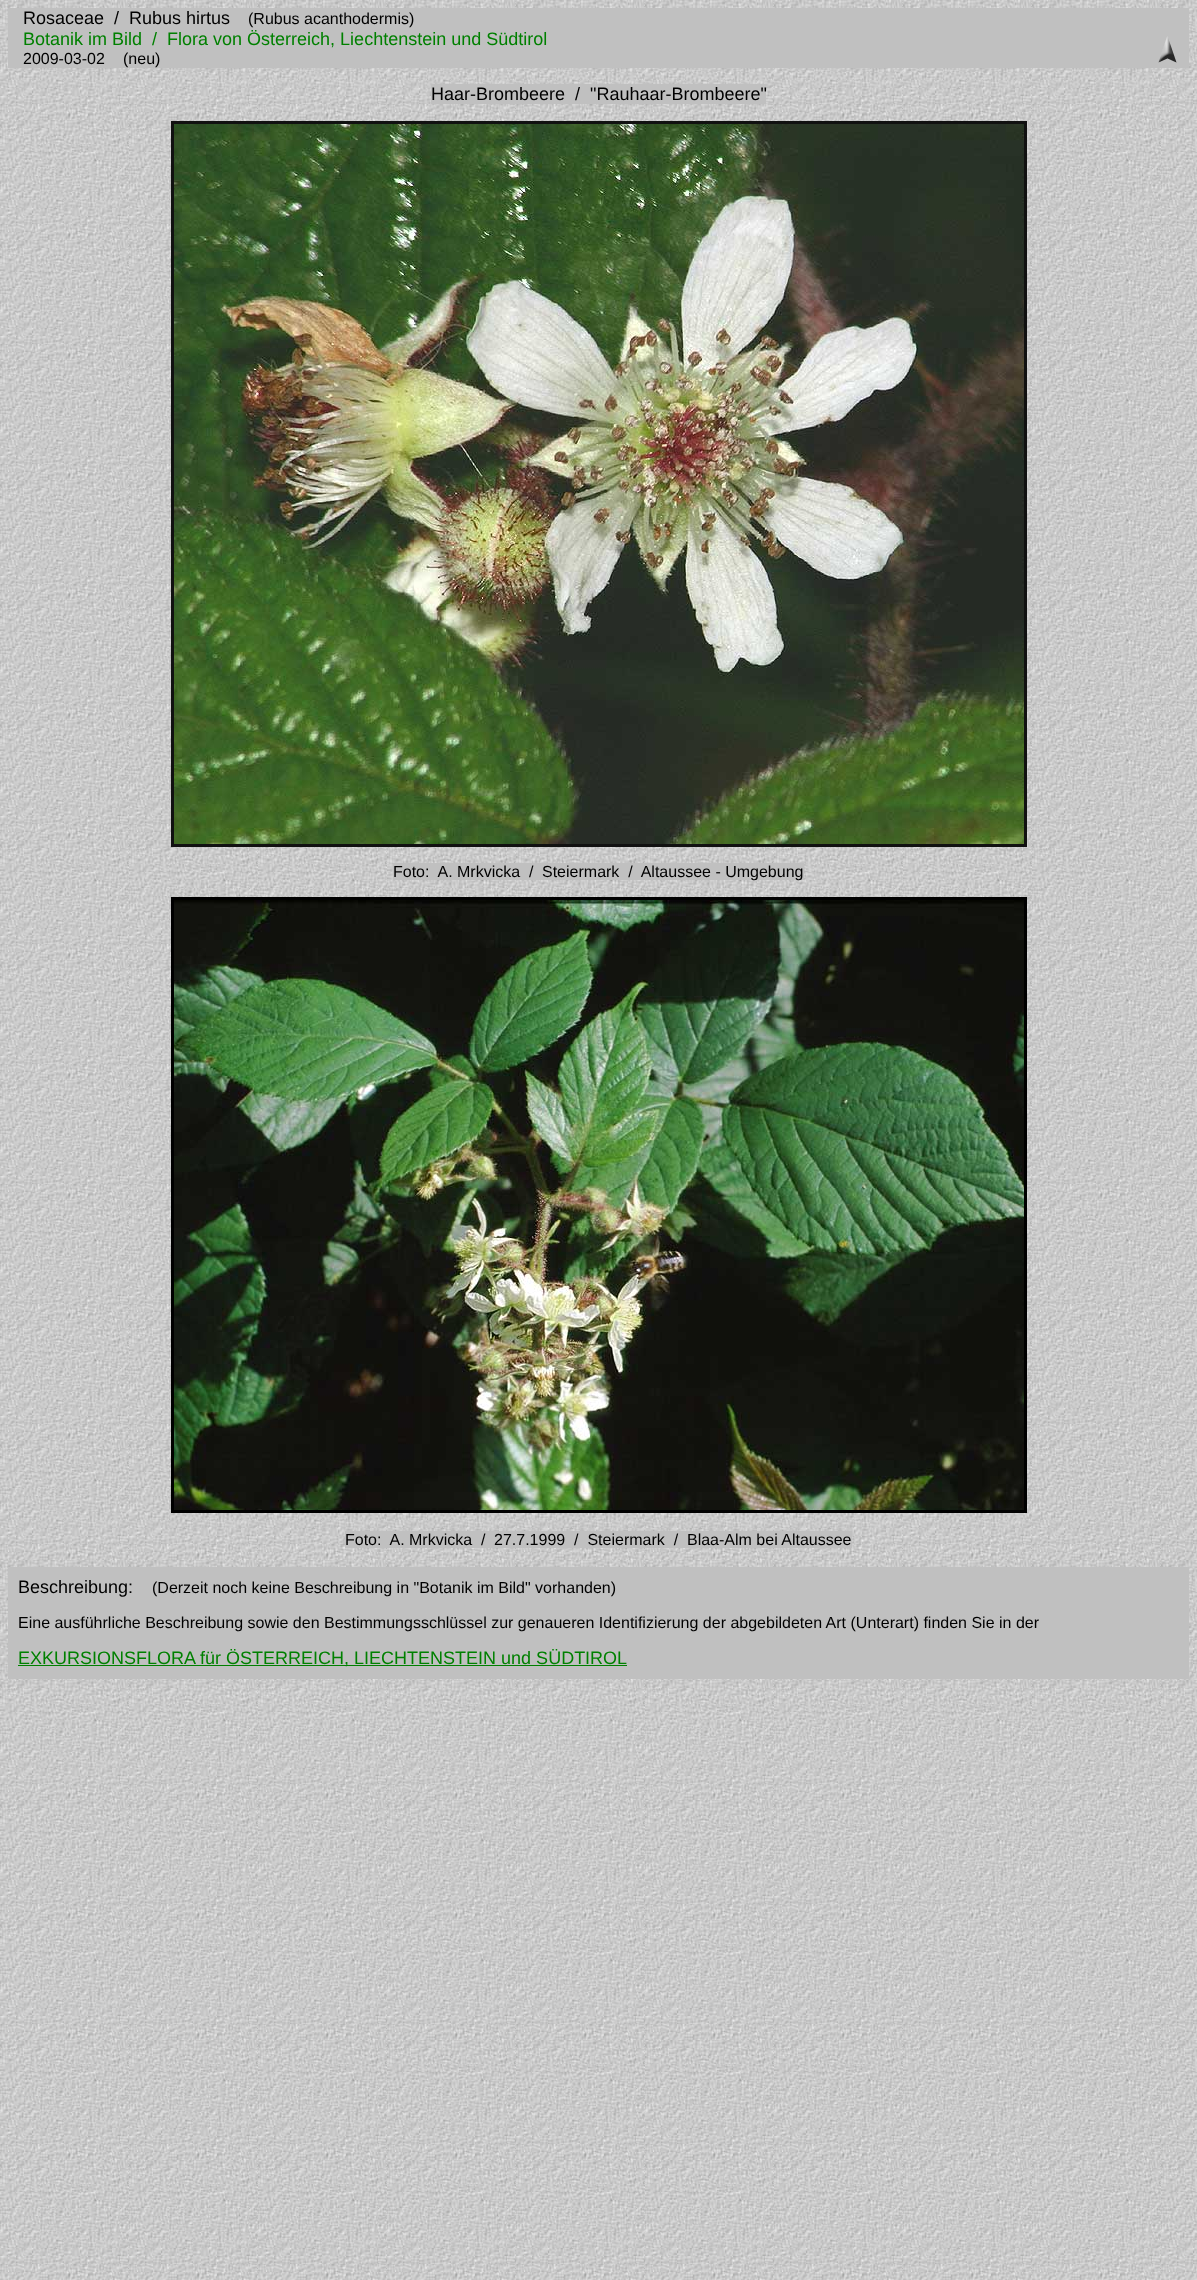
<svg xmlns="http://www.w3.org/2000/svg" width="1197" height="2280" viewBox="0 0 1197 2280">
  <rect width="100%" height="100%" fill="#fff"/>
  <image x="0" y="0" width="1197" height="2280" href="img/1.png"/>
  <path d="M8 8h1181v60H8z" fill="#c0c0c0"/>
  <image x="1158" y="36" width="19" height="27" href="img/2.png"/>
  <path d="M431 84h335v20H431z" fill="#c0c0c0"/>
  <path d="M171 121h856v3H171z" fill="#111"/>
  <path d="M1024 121h3v726H1024z" fill="#111"/>
  <path d="M171 844h856v3H171z" fill="#111"/>
  <path d="M171 121h3v726H171z" fill="#111"/>
  <image x="174" y="124" width="850" height="720" href="img/3.png"/>
  <path d="M393 863h411v17H393z" fill="#c0c0c0"/>
  <path d="M171 897h856v3H171z" fill="#000"/>
  <path d="M1024 897h3v616H1024z" fill="#000"/>
  <path d="M171 1510h856v3H171z" fill="#000"/>
  <path d="M171 897h3v616H171z" fill="#000"/>
  <image x="174" y="900" width="850" height="610" href="img/4.png"/>
  <path d="M345 1531h507v17H345z" fill="#c0c0c0"/>
  <path d="M8 1567h1181v112H8z" fill="#c0c0c0"/>
  <path d="M18 1665h609v1H18z" fill="#008000"/>
  <g font-family="Liberation Sans" font-size="18" fill="#000">
    <text x="23" y="24" xml:space="preserve">Rosaceae  /</text>
    <text x="129" y="24">Rubus hirtus</text>
  </g>
  <text x="248" y="24" font-family="Liberation Sans" font-size="16" fill="#000">(Rubus acanthodermis)</text>
  <text x="23" y="45" font-family="Liberation Sans" font-size="18" fill="#008000" xml:space="preserve">Botanik im Bild  /  Flora von Österreich, Liechtenstein und Südtirol</text>
  <g font-family="Liberation Sans" font-size="16" fill="#000">
    <text x="23" y="64">2009-03-02</text>
    <text x="123" y="64">(neu)</text>
  </g>
  <text x="431" y="100" font-family="Liberation Sans" font-size="18" fill="#000" xml:space="preserve">Haar-Brombeere  /  "Rauhaar-Brombeere"</text>
  <g font-family="Liberation Sans" font-size="16" fill="#000">
    <text x="393" y="877" xml:space="preserve">Foto:  A. Mrkvicka  /</text>
    <text x="542" y="877" xml:space="preserve">Steiermark  /  Altaussee - Umgebung</text>
    <text x="345" y="1545" xml:space="preserve">Foto:  A. Mrkvicka  /</text>
    <text x="494" y="1545" xml:space="preserve">27.7.1999  /  Steiermark  /  Blaa-Alm bei Altaussee</text>
  </g>
  <text x="18" y="1593" font-family="Liberation Sans" font-size="18" fill="#000">Beschreibung:</text>
  <g font-family="Liberation Sans" font-size="16" fill="#000">
    <text x="152" y="1593">(Derzeit noch keine Beschreibung in "Botanik im Bild" vorhanden)</text>
    <text x="18" y="1628">Eine ausführliche Beschreibung sowie den Bestimmungsschlüssel zur genaueren Identifizierung der abgebildeten Art (Unterart) finden Sie in der</text>
  </g>
  <text x="18" y="1664" font-family="Liberation Sans" font-size="18" fill="#008000">EXKURSIONSFLORA für ÖSTERREICH, LIECHTENSTEIN und SÜDTIROL</text>
</svg>
